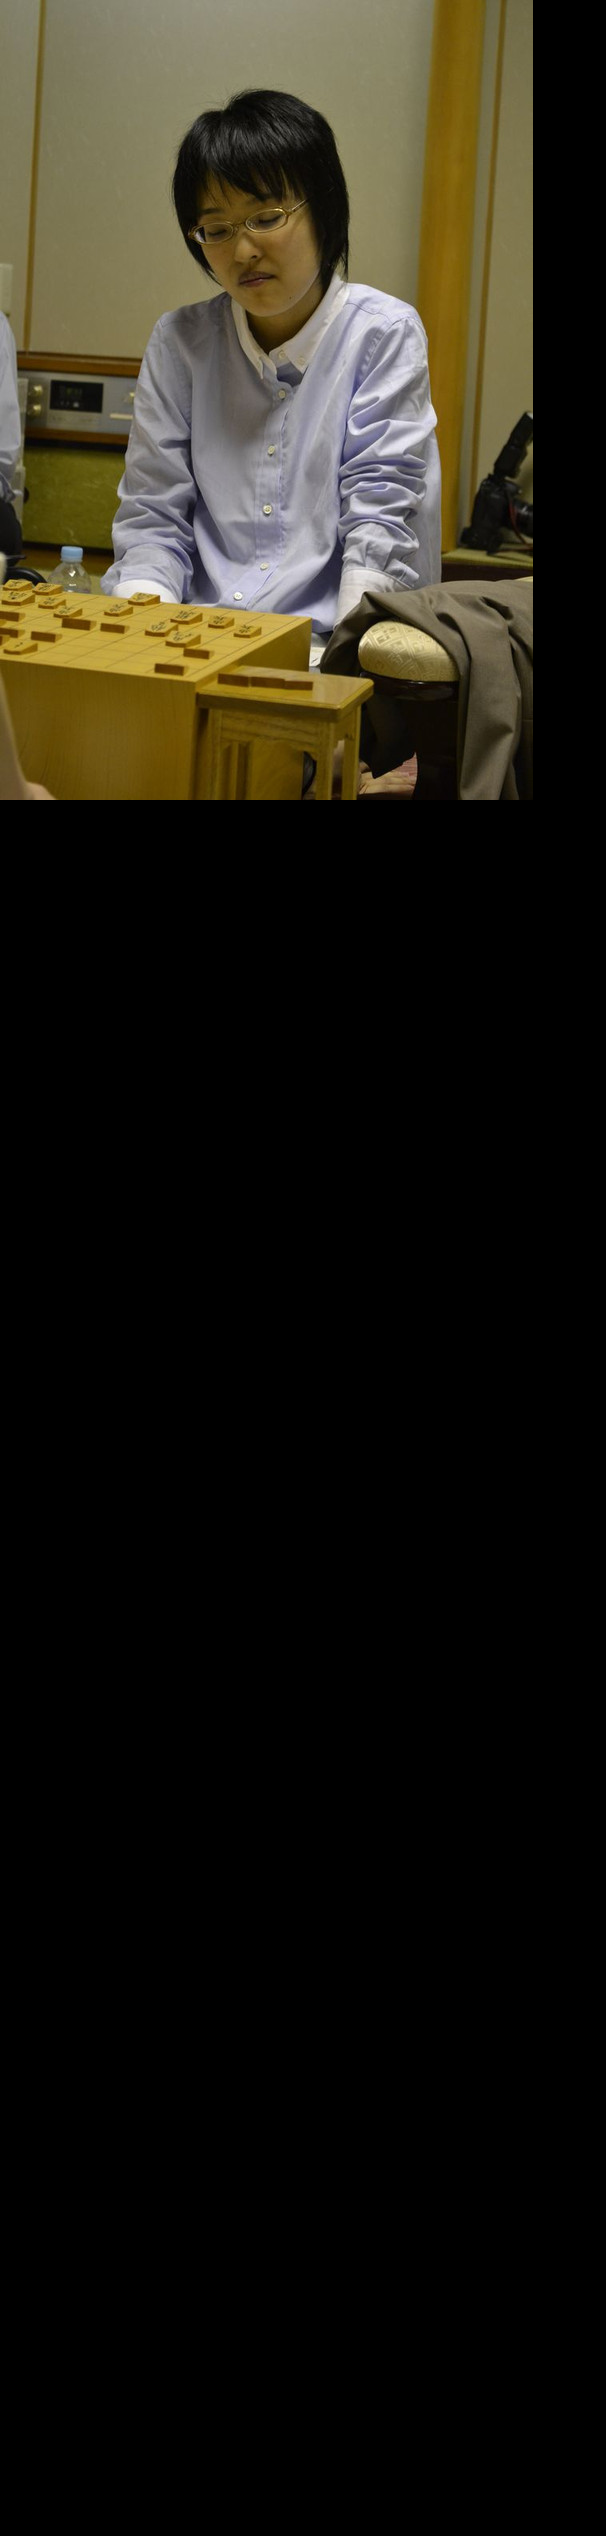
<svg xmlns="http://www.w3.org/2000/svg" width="606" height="2536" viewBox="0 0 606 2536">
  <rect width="100%" height="100%" fill="#000"/>
  <image x="0" y="0" width="533" height="800" href="img/1.png"/>
</svg>
